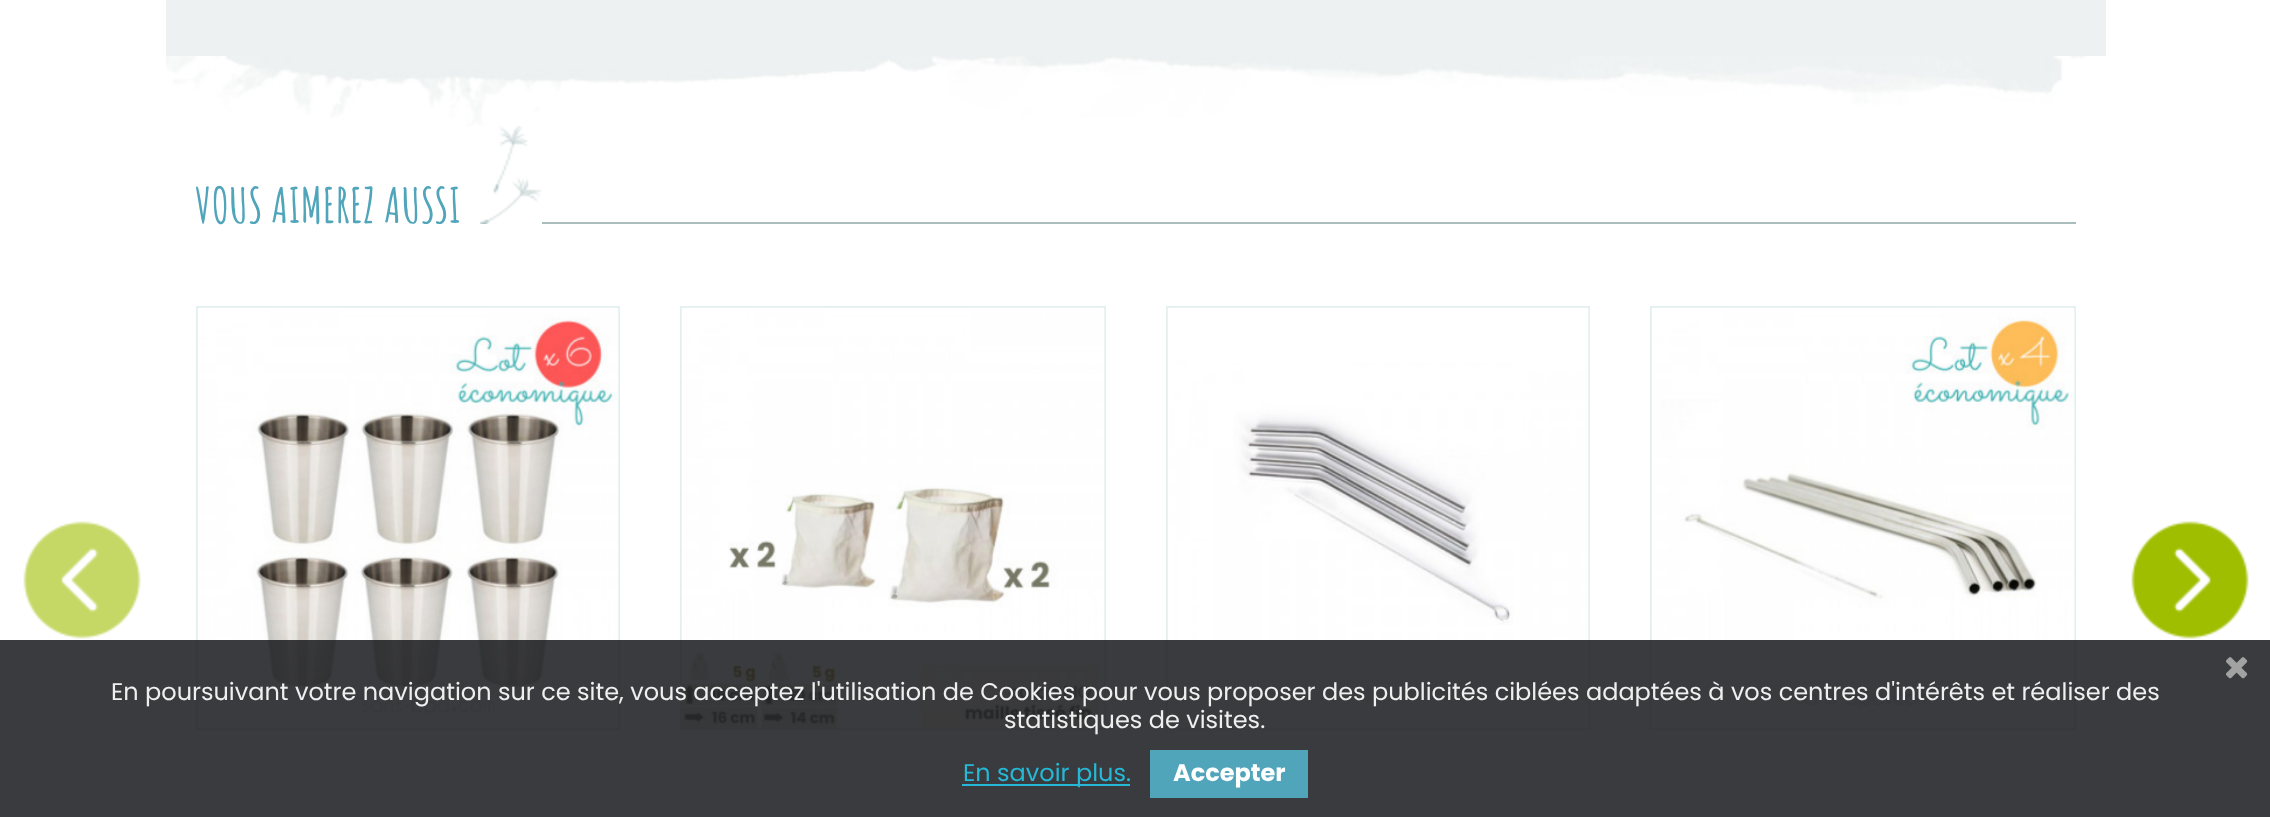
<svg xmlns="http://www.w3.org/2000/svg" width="2270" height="817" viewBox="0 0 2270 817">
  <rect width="100%" height="100%" fill="#fff"/>
  <path d="M166 0h1940v56H166z" fill="#edf1f1"/>
  <image x="166" y="56" width="1940" height="70" href="img/1.png"/>
  <image x="480" y="126" width="62" height="98" href="img/2.png"/>
  <path d="M542 222h1534v2H542z" fill="#a9bdbd"/>
  <path d="M197 307h422v422H197z" fill="none" stroke="#e4f0f0" stroke-width="2"/>
  <image x="197" y="307" width="422" height="422" href="img/3.png"/>
  <path d="M681 307h424v422H681z" fill="none" stroke="#e4f0f0" stroke-width="2"/>
  <image x="681" y="307" width="424" height="422" href="img/4.png"/>
  <path d="M1167 307h422v422H1167z" fill="none" stroke="#e4f0f0" stroke-width="2"/>
  <image x="1167" y="307" width="422" height="422" href="img/5.png"/>
  <path d="M1651 307h424v422H1651z" fill="none" stroke="#e4f0f0" stroke-width="2"/>
  <image x="1651" y="307" width="424" height="422" href="img/6.png"/>
  <image x="23" y="521" width="118" height="118" href="img/7.png"/>
  <image x="2131" y="521" width="118" height="118" href="img/8.png"/>
  <path d="M0 640h2270v177H0z" fill="#17191cd9"/>
  <image x="2226" y="657" width="22" height="22" href="img/9.png"/>
  <path d="M962 784h168v2H962z" fill="#25b9d7"/>
  <path d="M1150 750h158v48H1150z" fill="#50a5bb"/>
  <text x="195" y="223" font-family="Amatic SC" font-size="48" font-weight="bold" fill="#50a5bb">VOUS AIMEREZ AUSSI</text>
  <g font-family="Poppins" font-size="24" fill="#efefef">
    <text x="111" y="700">En poursuivant votre navigation sur ce site, vous acceptez l'utilisation de Cookies pour vous proposer des publicités ciblées adaptées à vos centres d'intérêts et réaliser des</text>
    <text x="1004" y="728">statistiques de visites.</text>
  </g>
  <text x="963" y="781" font-family="Poppins" font-size="24" fill="#25b9d7">En savoir plus.</text>
  <text x="1173" y="781" font-family="Poppins" font-size="24" font-weight="bold" fill="#fff">Accepter</text>
</svg>
